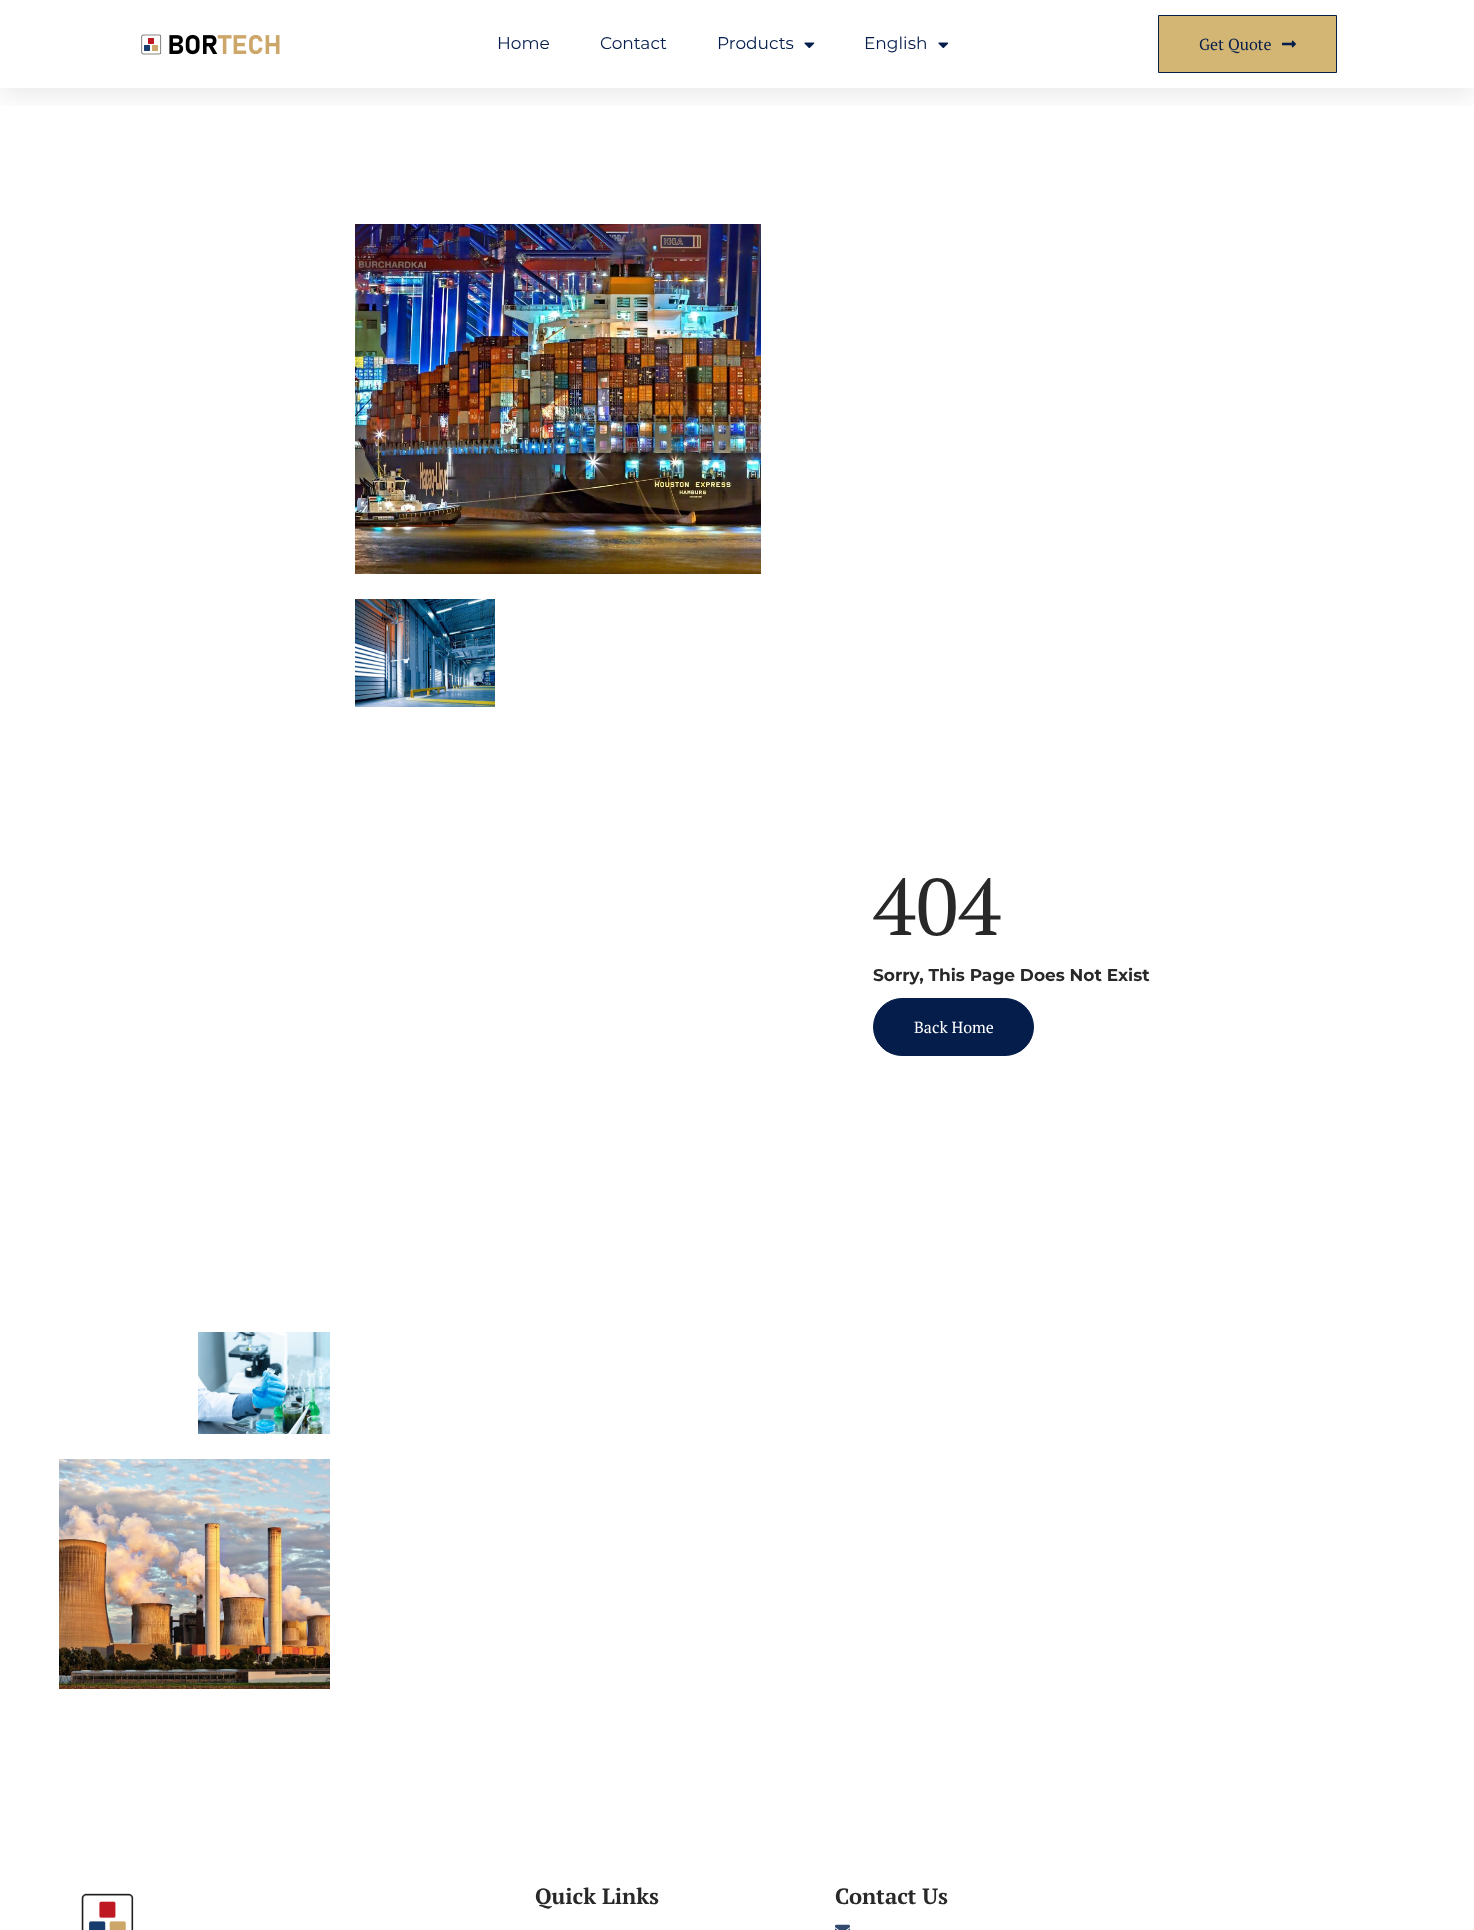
<svg xmlns="http://www.w3.org/2000/svg" width="1474" height="1930" viewBox="0 0 1474 1930">
  <defs>
    <clipPath id="clip1"><path d="M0 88h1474v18H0z"/></clipPath>
  </defs>
  <rect width="100%" height="100%" fill="#fff"/>
  <g clip-path="url(#clip1)">
    <path d="M0 5h1474v88H0z" fill="#0000001a" filter="blur(15px)"/>
  </g>
  <image x="141" y="34" width="139" height="21" href="img/1.png"/>
  <image x="804" y="42" width="11" height="7" href="img/2.png"/>
  <image x="938" y="42" width="11" height="7" href="img/2.png"/>
  <path d="M1158.5 15.5h178v57H1158.5z" fill="#d3b574" stroke="#051d4b"/>
  <image x="1282" y="40" width="14" height="8" href="img/3.png"/>
  <image x="355" y="224" width="406" height="350" href="img/4.png"/>
  <image x="355" y="599" width="140" height="108" href="img/5.png"/>
  <rect x="873.5" y="998.5" width="160" height="57" rx="28.5" fill="#051d4b" stroke="#051d4b"/>
  <image x="198" y="1332" width="132" height="102" href="img/6.png"/>
  <image x="59" y="1459" width="271" height="230" href="img/7.png"/>
  <image x="81" y="1893" width="53" height="37" href="img/8.png"/>
  <image x="835" y="1924" width="15" height="6" href="img/9.png"/>
  <g font-family="Montserrat" font-size="17" fill="#051d4b">
    <text x="497" y="49">Home</text>
    <text x="600" y="49">Contact</text>
    <text x="717" y="49">Products</text>
    <text x="864" y="49">English</text>
  </g>
  <text x="1199" y="50" font-family="PT Serif" font-size="16" fill="#051d4b">Get Quote</text>
  <text x="873" y="935" font-family="PT Serif" font-size="80" fill="#282829">404</text>
  <text x="873" y="981" font-family="Montserrat" font-size="17" font-weight="bold" fill="#282829">Sorry, This Page Does Not Exist</text>
  <text x="914" y="1033" font-family="PT Serif" font-size="16" fill="#fff">Back Home</text>
  <g font-family="PT Serif" font-size="22" font-weight="bold" fill="#282829">
    <text x="535" y="1904">Quick Links</text>
    <text x="835" y="1904">Contact Us</text>
  </g>
</svg>
